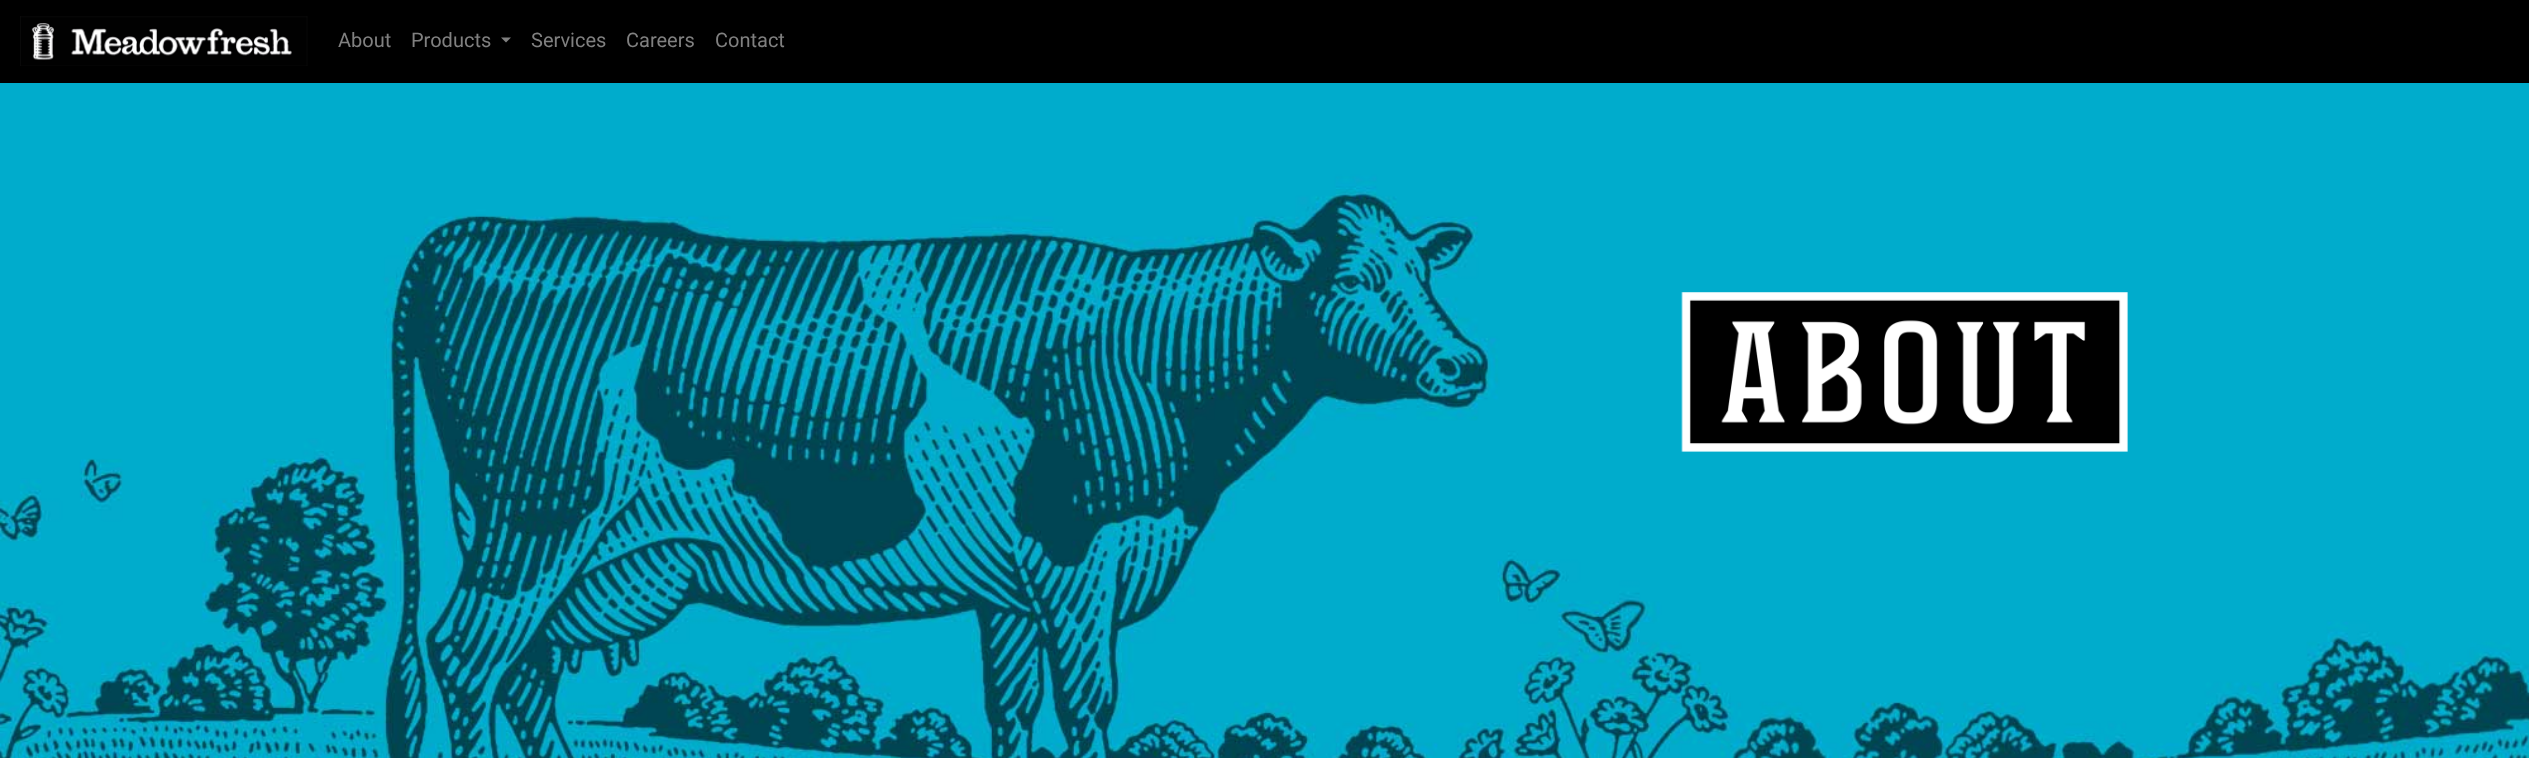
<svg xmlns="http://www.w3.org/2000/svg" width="2529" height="758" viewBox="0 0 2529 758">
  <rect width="100%" height="100%" fill="#fff"/>
  <path d="M0 0h2529v83H0z" fill="#000"/>
  <image x="20" y="16" width="288" height="50" href="img/1.png"/>
  <path d="M501 37.5H511L506 42.5Z" fill="#808080"/>
  <image x="0" y="83" width="2529" height="675" href="img/2.png"/>
  <image x="1681" y="292" width="447" height="160" href="img/3.png"/>
  <g font-family="Roboto" font-size="20" fill="#808080">
    <text x="338" y="47">About</text>
    <text x="411" y="47">Products</text>
    <text x="531" y="47">Services</text>
    <text x="626" y="47">Careers</text>
    <text x="715" y="47">Contact</text>
  </g>
</svg>
